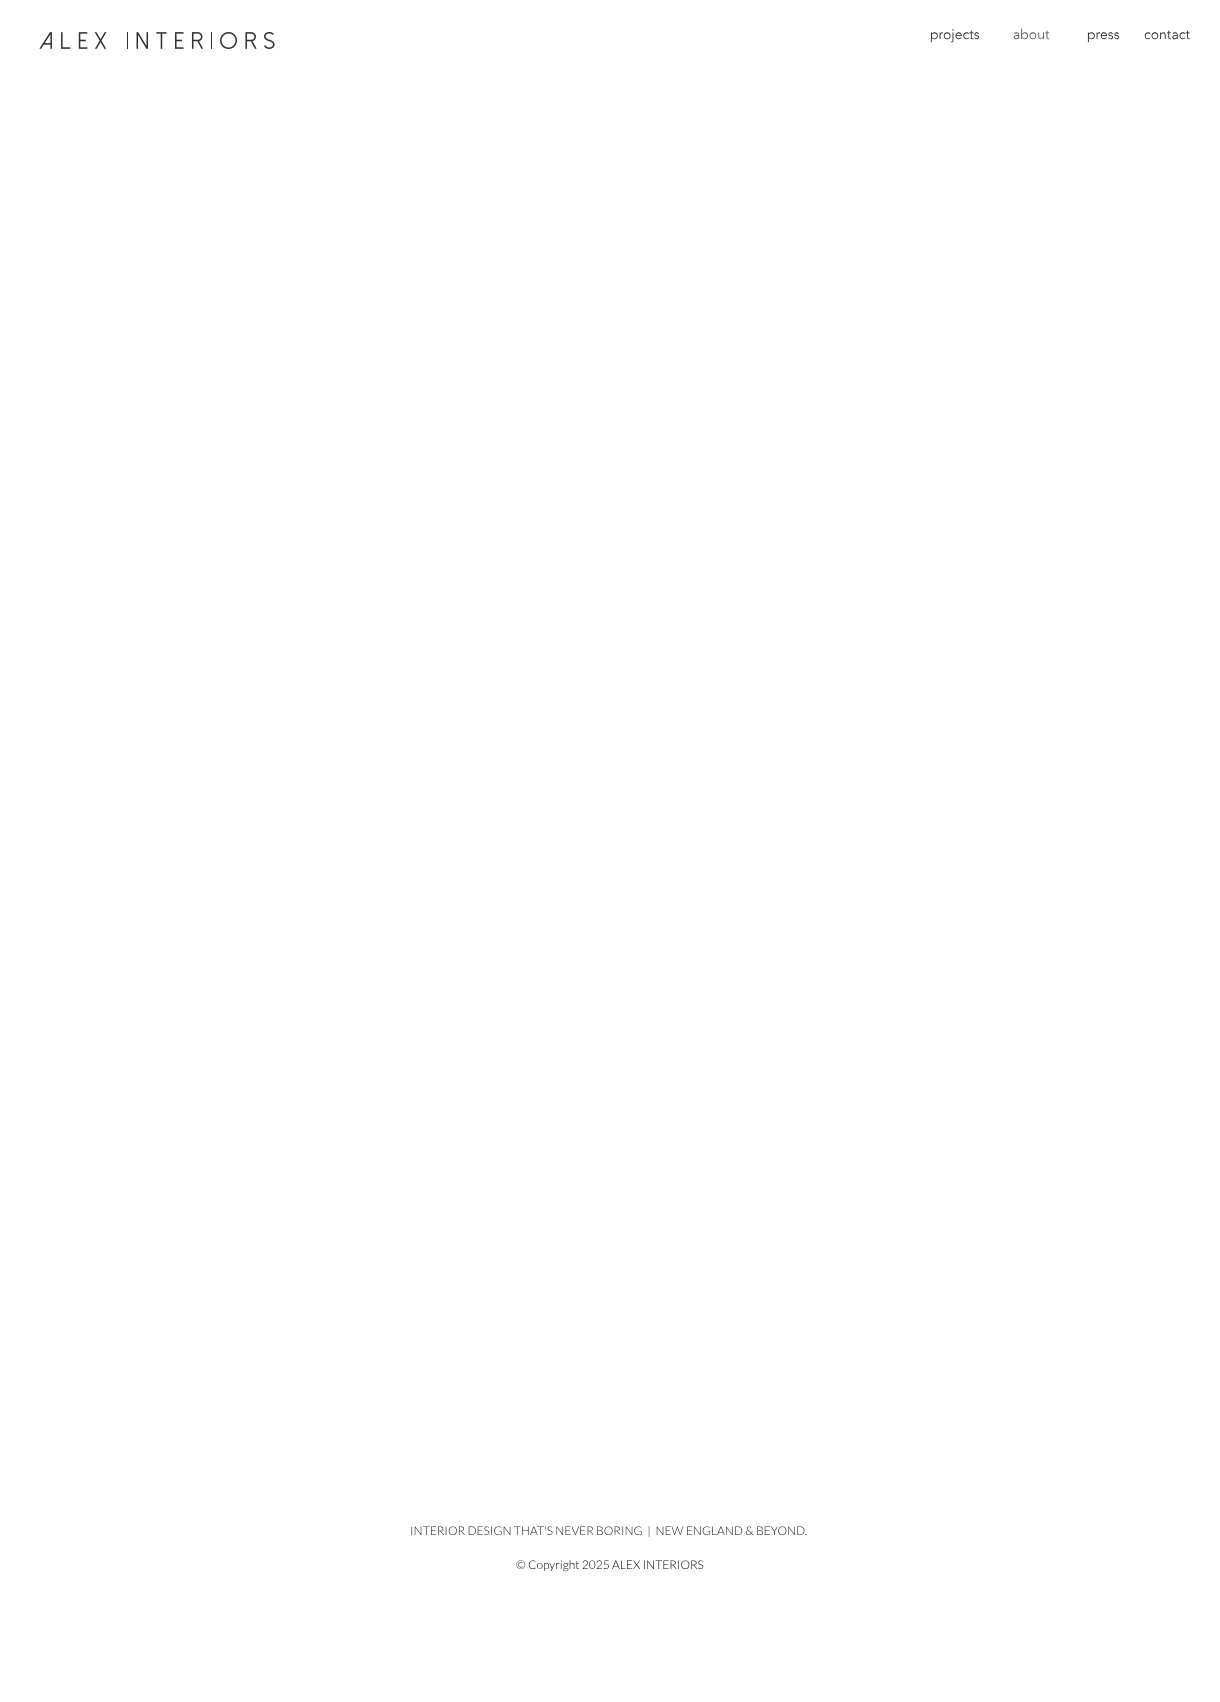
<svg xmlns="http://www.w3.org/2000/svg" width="1220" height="1702">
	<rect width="100%" height="100%" fill="#FFFFFF" />
	<image x="39" y="32" width="236" height="17" href="assets/img1.png" />
	<text x="930" y="39" font-family="'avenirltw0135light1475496'" font-size="14" font-weight="300" fill="#181818">projects</text>
	<text x="1013" y="39" font-family="'avenirltw0135light1475496'" font-size="14" font-weight="300" fill="#525252">about</text>
	<g font-family="'avenirltw0135light1475496'" font-size="14" font-weight="300" fill="#181818">
		<text x="1087" y="39">press</text>
		<text x="1144" y="39">contact</text>
	</g>
	<text x="410" y="1535" font-family="Lato" font-size="12" font-weight="300" fill="#181818" xml:space="preserve">INTERIOR DESIGN THAT'S NEVER BORING  |  NEW ENGLAND &amp; BEYOND.</text>
	<text x="516" y="1569" font-family="Lato" font-size="12" font-weight="300" fill="#000000">© Copyright 2025 ALEX INTERIORS</text>
</svg>
